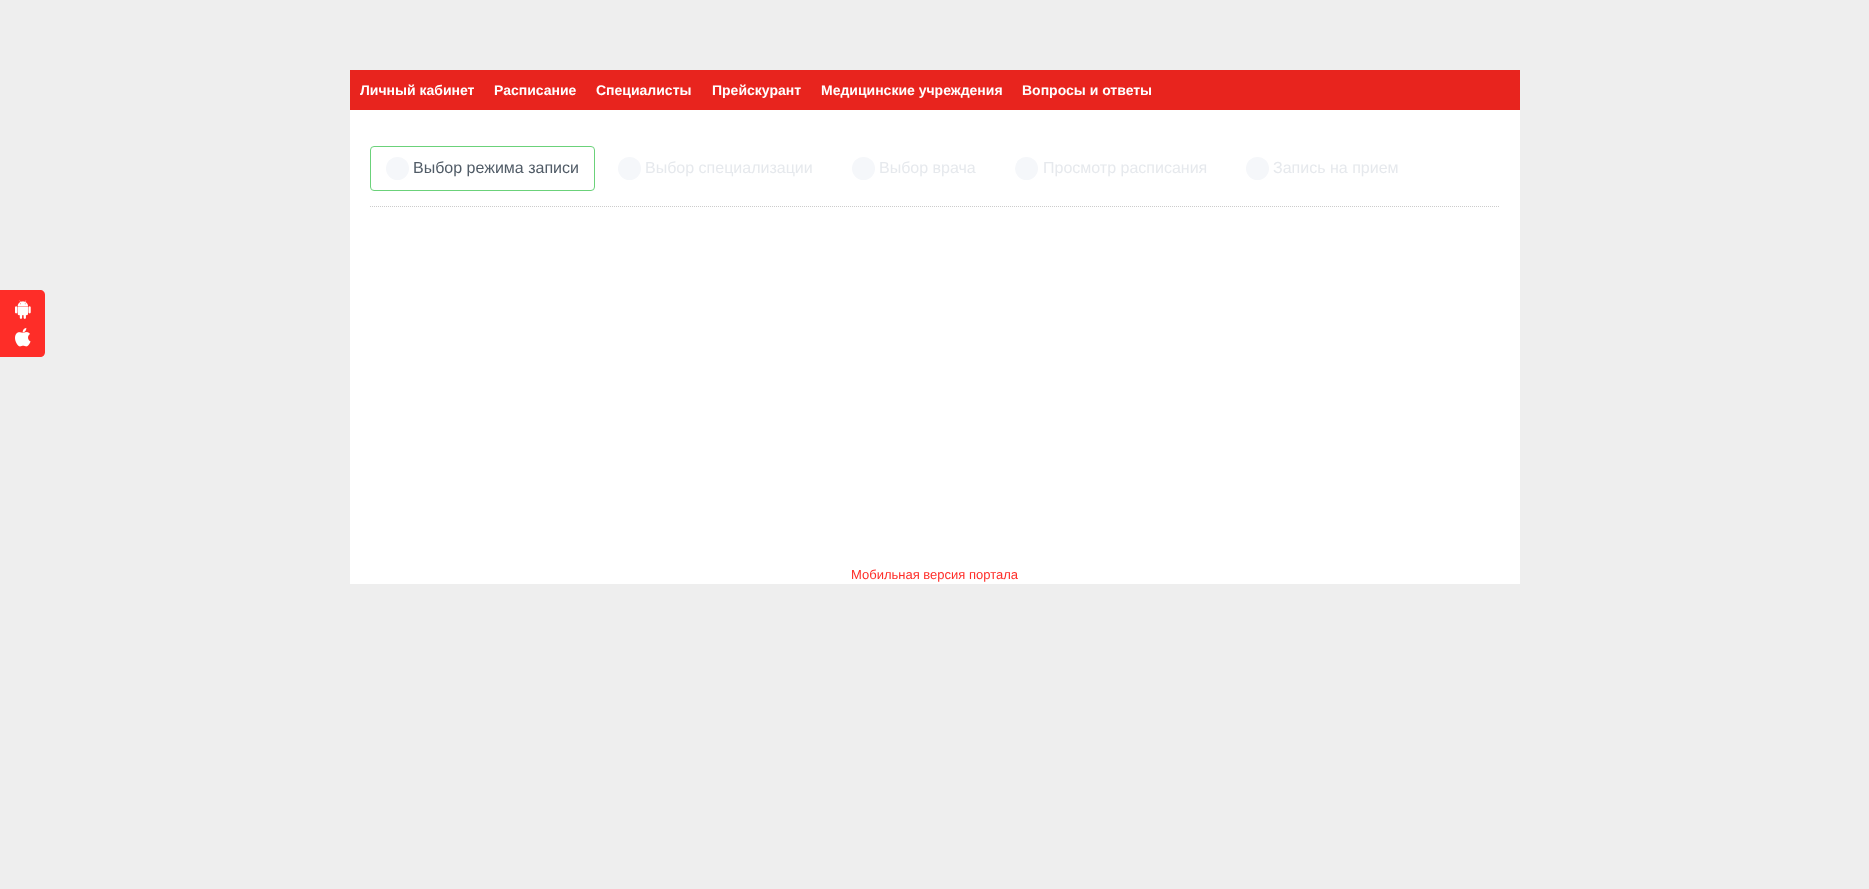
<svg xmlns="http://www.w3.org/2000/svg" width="1869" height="889">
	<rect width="100%" height="100%" fill="#EEEEEE" />
	<path d="M0 290H40C43 290 45 292 45 295V352C45 355 43 357 40 357H0Z" fill="#FE2D28" />
	<image x="15" y="300" width="16" height="19" href="assets/img1.png" />
	<image x="15" y="327" width="16" height="20" href="assets/img2.png" />
	<rect x="350" y="70" width="1170" height="40" fill="#E8241E" />
	<g font-family="Liberation Sans" font-size="14" font-weight="700" fill="#FFFFFF">
		<text x="360" y="95">Личный кабинет</text>
		<text x="494" y="95">Расписание</text>
		<text x="596" y="95">Специалисты</text>
		<text x="712" y="95">Прейскурант</text>
		<text x="821" y="95">Медицинские учреждения</text>
		<text x="1022" y="95">Вопросы и ответы</text>
	</g>
	<rect x="350" y="110" width="1170" height="474" fill="#FFFFFF" />
	<path d="M370 206.5H1500" fill="none" stroke="#CCCCCC" stroke-dasharray="1 1" />
	<rect x="370.5" y="146.5" width="224" height="44" rx="3.5" fill="none" stroke="#6BD27A" />
	<circle cx="397.5" cy="168.5" r="11.5" fill="#F5F7FA" />
	<text x="413" y="173" font-family="Liberation Sans" font-size="16" fill="#515C67">Выбор режима записи</text>
	<circle cx="629.5" cy="168.5" r="11.5" fill="#F5F7FA" />
	<text x="645" y="173" font-family="Liberation Sans" font-size="16" fill="#E6E9ED">Выбор специализации</text>
	<circle cx="863.5" cy="168.5" r="11.5" fill="#F5F7FA" />
	<text x="879" y="173" font-family="Liberation Sans" font-size="16" fill="#E6E9ED">Выбор врача</text>
	<circle cx="1026.5" cy="168.5" r="11.5" fill="#F5F7FA" />
	<text x="1043" y="173" font-family="Liberation Sans" font-size="16" fill="#E6E9ED">Просмотр расписания</text>
	<circle cx="1257.5" cy="168.5" r="11.5" fill="#F5F7FA" />
	<text x="1273" y="173" font-family="Liberation Sans" font-size="16" fill="#E6E9ED">Запись на прием</text>
	<text x="851" y="579" font-family="Liberation Sans" font-size="13" fill="#FE2D28">Мобильная версия портала</text>
</svg>
